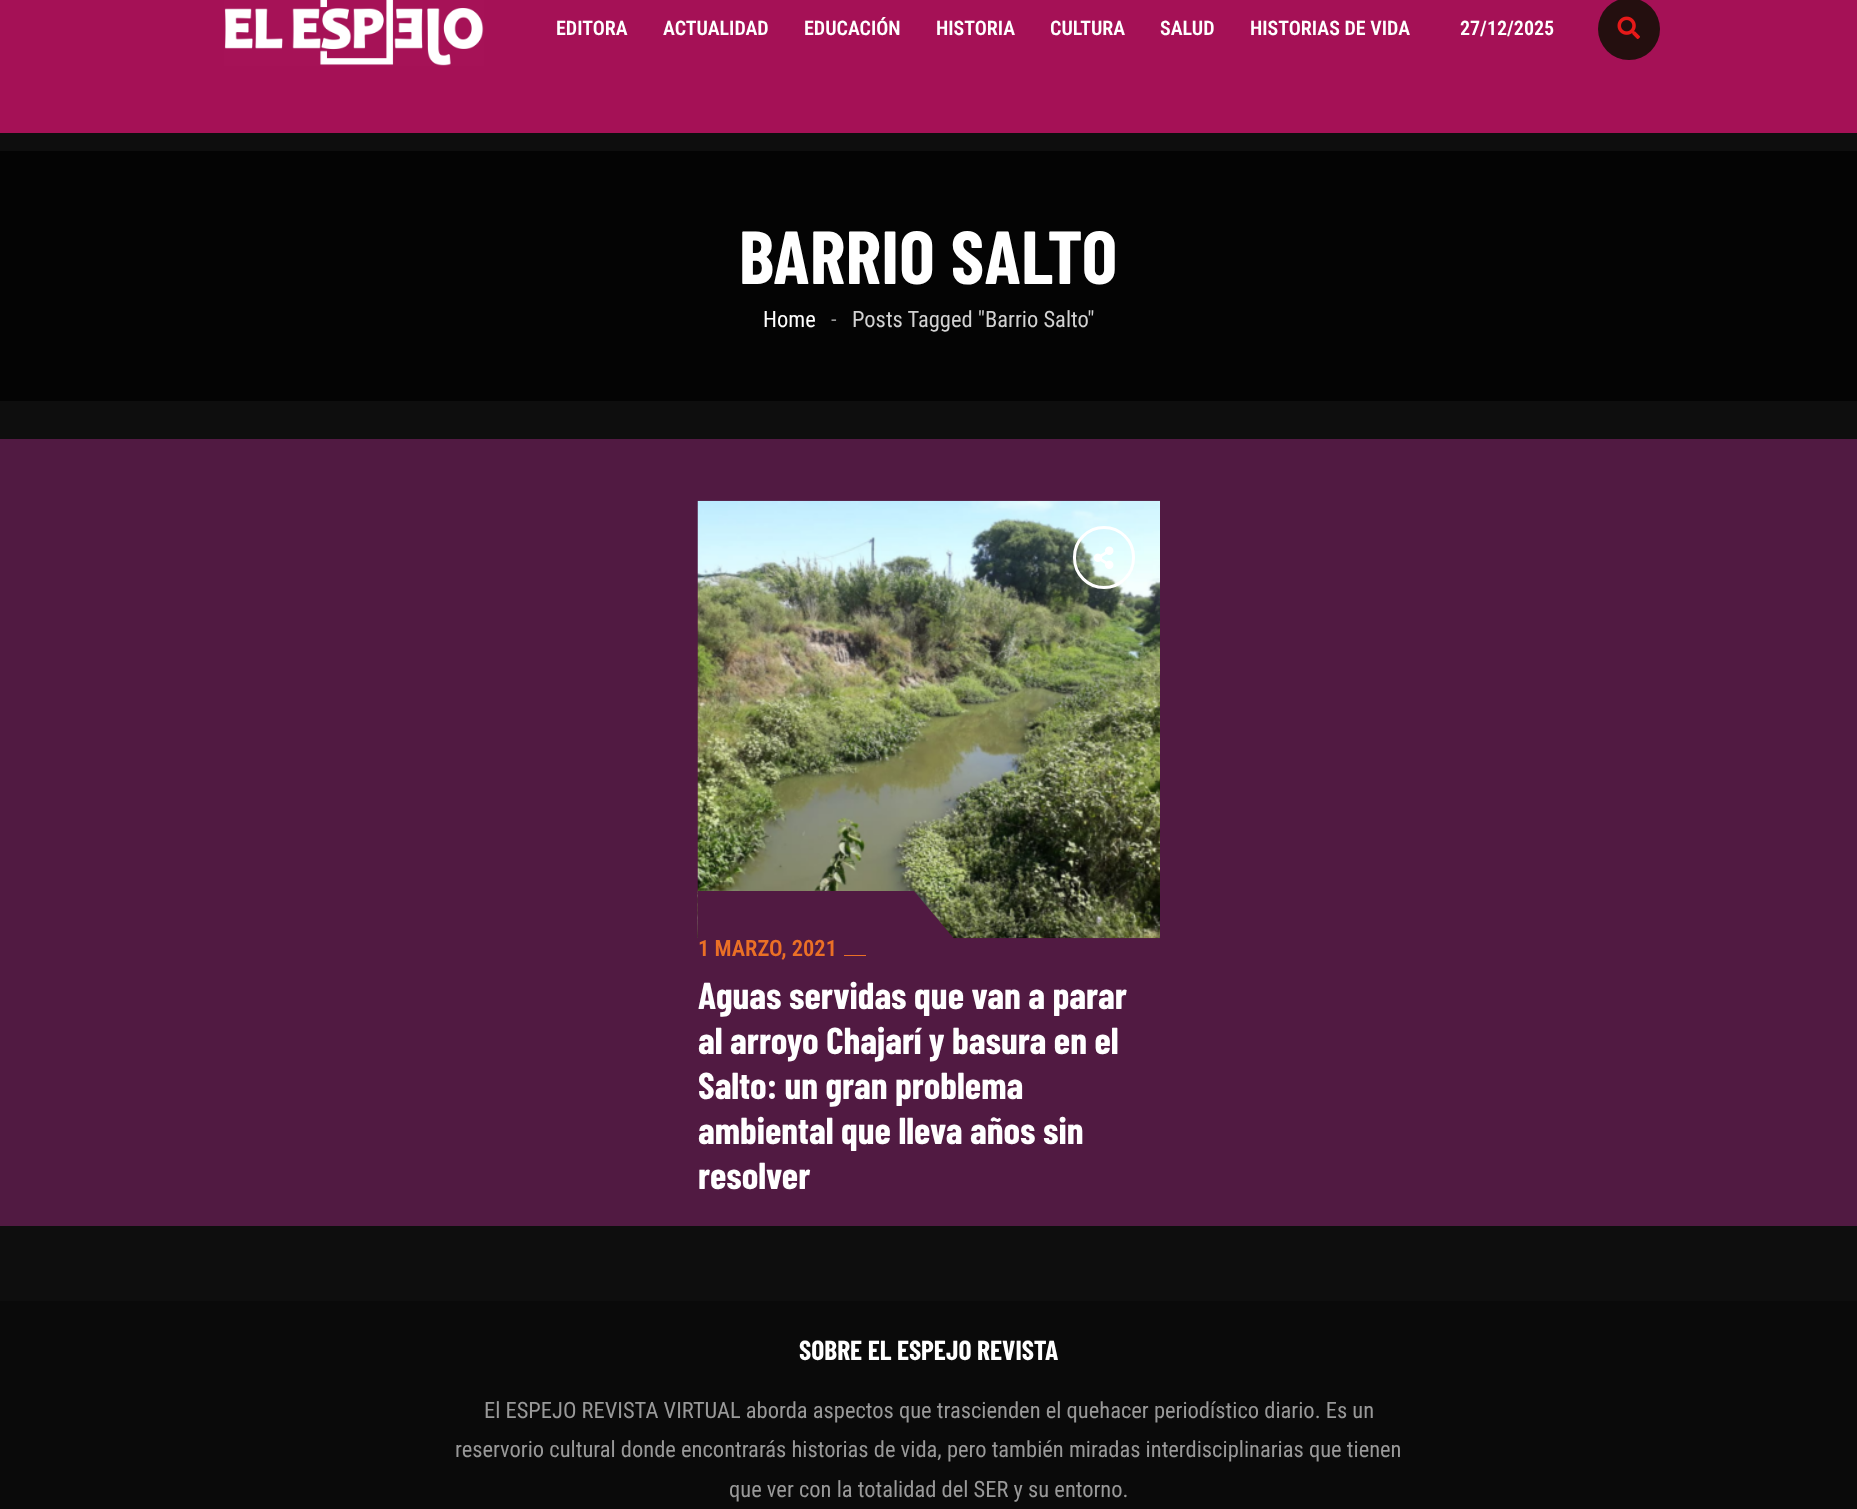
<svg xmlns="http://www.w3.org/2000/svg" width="1857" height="1509">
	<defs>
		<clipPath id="clip1"><rect x="698" y="501" width="462" height="438" /></clipPath>
	</defs>
	<rect width="100%" height="100%" fill="#0E0E0E" />
	<rect x="0" y="0" width="1857" height="133" fill="#A51156" />
	<image x="224" y="0" width="260" height="66" href="assets/img1.png" />
	<g font-family="Roboto Condensed" font-size="20" font-weight="600" fill="#FFFFFF">
		<text x="556" y="35">EDITORA</text>
		<text x="663" y="35">ACTUALIDAD</text>
		<text x="804" y="35">EDUCACIÓN</text>
		<text x="936" y="35">HISTORIA</text>
		<text x="1050" y="35">CULTURA</text>
		<text x="1160" y="35">SALUD</text>
		<text x="1250" y="35">HISTORIAS DE VIDA</text>
		<text x="1460" y="35">27/12/2025</text>
	</g>
	<circle cx="1629" cy="29" r="31" fill="#240F0F" />
	<image x="1617" y="16" width="23" height="23" href="assets/img2.png" />
	<rect x="0" y="151" width="1857" height="250" fill="#040404" />
	<text x="739" y="284" font-family="Barlow Condensed" font-size="75" font-weight="700" letter-spacing="0.5" fill="#FFFFFF">BARRIO SALTO</text>
	<text x="763" y="327" font-family="Roboto Condensed" font-size="22.5" fill="#FFFFFF">Home</text>
	<text x="831" y="327" font-family="Roboto Condensed" font-size="22.5" fill="#999999">-</text>
	<text x="852" y="327" font-family="Roboto Condensed" font-size="22.5" fill="#D2D2D2">Posts Tagged "Barrio Salto"</text>
	<rect x="0" y="439" width="1857" height="787" fill="#511A42" />
	<image x="697" y="500" width="463" height="439" href="assets/img3.png" />
	<rect x="1074.5" y="527.5" width="59" height="60" rx="29.5" fill="none" stroke="#FFFFFF" stroke-width="3" />
	<image x="1093" y="546" width="21" height="23" href="assets/img4.png" />
	<g clip-path="url(#clip1)">
		<path d="M652 891H914L956 941H693Z" fill="#511A42" />
	</g>
	<text x="698" y="956" font-family="Roboto Condensed" font-size="22.5" font-weight="600" fill="#EA7026">1 MARZO, 2021</text>
	<rect x="844" y="955" width="22" height="1" fill="#EA7026" />
	<g font-family="Barlow Condensed" font-size="37.5" font-weight="700" fill="#FFFFFF">
		<text x="698" y="1009">Aguas servidas que van a parar</text>
		<text x="698" y="1054">al arroyo Chajarí y basura en el</text>
		<text x="698" y="1099">Salto: un gran problema</text>
		<text x="698" y="1144">ambiental que lleva años sin</text>
		<text x="698" y="1189">resolver</text>
	</g>
	<rect x="0" y="1301" width="1857" height="208" fill="#0A0A0A" />
	<text x="799" y="1360" font-family="Barlow Condensed" font-size="27.5" font-weight="700" fill="#FFFFFF">SOBRE EL ESPEJO REVISTA</text>
	<g font-family="Roboto Condensed" font-size="22.5" fill="#999999">
		<text x="484" y="1418">El ESPEJO REVISTA VIRTUAL aborda aspectos que trascienden el quehacer periodístico diario. Es un</text>
		<text x="455" y="1457">reservorio cultural donde encontrarás historias de vida, pero también miradas interdisciplinarias que tienen</text>
		<text x="729" y="1497">que ver con la totalidad del SER y su entorno.</text>
	</g>
</svg>
